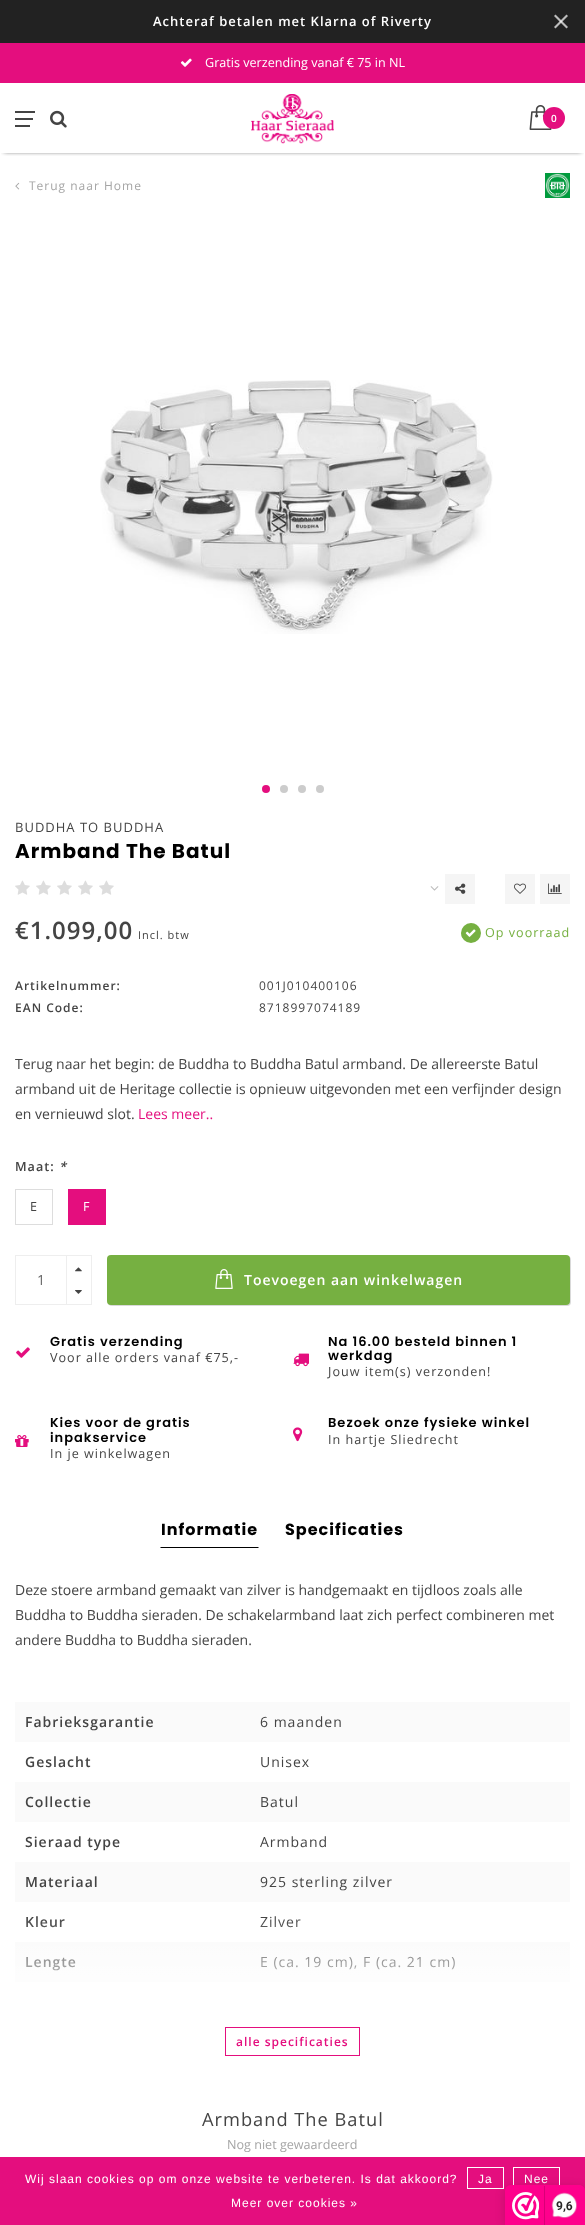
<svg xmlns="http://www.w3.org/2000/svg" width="585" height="2225">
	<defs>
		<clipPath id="clip1"><rect x="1" y="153" width="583" height="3" /></clipPath>
		<linearGradient id="g1" gradientUnits="userSpaceOnUse" x1="293" y1="1916" x2="293" y2="2016"><stop offset="0" stop-color="#FFFFFF" stop-opacity="0" /><stop offset="1" stop-color="#FFFFFF" /></linearGradient>
	</defs>
	<rect width="100%" height="100%" fill="#FFFFFF" />
	<rect x="0" y="0" width="585" height="43" fill="#222222" />
	<text x="153" y="26" font-family="Open Sans" font-size="13" font-weight="600" letter-spacing="1" fill="#FFFFFF">Achteraf betalen met Klarna of Riverty</text>
	<path d="M555.5 14.5L568 27L566.5 28.5L554 16Z" fill="#BDBDBD" />
	<path d="M554 27L566.5 14.5L568 16L555.5 28.5Z" fill="#FFFFFF" fill-opacity="0.7" />
	<rect x="0" y="43" width="585" height="40" fill="#E40E7E" />
	<image x="180" y="58" width="12" height="9" href="assets/img1.png" />
	<text x="205" y="67" font-family="Open Sans" font-size="12.6" fill="#FFFFFF">Gratis verzending vanaf € 75 in NL</text>
	<g clip-path="url(#clip1)">
		<rect x="4" y="89" width="577" height="62" fill="#000000" filter="blur(2.5px)" />
	</g>
	<rect x="15" y="111" width="20" height="2" fill="#444444" />
	<rect x="15" y="118" width="18" height="2" fill="#444444" />
	<rect x="15" y="125" width="15" height="2" fill="#444444" />
	<image x="50" y="110" width="17" height="18" href="assets/img2.png" />
	<image x="251" y="94" width="83" height="50" href="assets/img3.png" />
	<image x="529" y="105" width="23" height="25" href="assets/img4.png" />
	<circle cx="554" cy="118" r="11" fill="#E40E7E" />
	<text x="551" y="122" font-family="Open Sans" font-size="10" font-weight="600" letter-spacing="1" fill="#FFFFFF">0</text>
	<image x="15" y="182" width="5" height="8" href="assets/img5.png" />
	<text x="29" y="190" font-family="Open Sans" font-size="12" letter-spacing="1" fill="#A5A5A5">Terug naar Home</text>
	<image x="545" y="173" width="25" height="25" href="assets/img6.png" />
	<image x="100" y="380" width="393" height="254" href="assets/img7.png" />
	<circle cx="266" cy="789" r="4" fill="#E40E7E" />
	<circle cx="284" cy="789" r="4" fill="#CCCCCC" />
	<circle cx="302" cy="789" r="4" fill="#CCCCCC" />
	<circle cx="320" cy="789" r="4" fill="#CCCCCC" />
	<text x="15" y="832" font-family="Open Sans" font-size="13" letter-spacing="1" fill="#444444">BUDDHA TO BUDDHA</text>
	<text x="15" y="858" font-family="Poppins" font-size="20" font-weight="700" letter-spacing="1" fill="#000000">Armband The Batul</text>
	<image x="15" y="880" width="15" height="15" href="assets/img8.png" />
	<image x="36" y="880" width="15" height="15" href="assets/img8.png" />
	<image x="57" y="880" width="15" height="15" href="assets/img8.png" />
	<image x="78" y="880" width="15" height="15" href="assets/img8.png" />
	<image x="99" y="880" width="15" height="15" href="assets/img8.png" />
	<image x="430" y="886" width="9" height="5" href="assets/img9.png" />
	<rect x="445" y="874" width="30" height="30" fill="#F5F5F5" />
	<image x="455" y="883" width="11" height="11" href="assets/img10.png" />
	<rect x="505" y="874" width="30" height="30" fill="#F5F5F5" />
	<image x="514" y="883" width="12" height="11" href="assets/img11.png" />
	<rect x="540" y="874" width="30" height="30" fill="#F5F5F5" />
	<image x="548" y="883" width="14" height="11" href="assets/img12.png" />
	<text x="15" y="939" font-family="Open Sans" font-size="24" font-weight="600" letter-spacing="1" fill="#444444">€1.099,00</text>
	<text x="138" y="939" font-family="Open Sans" font-size="11" letter-spacing="1" fill="#444444">Incl. btw</text>
	<circle cx="471" cy="933" r="10" fill="#76B041" />
	<image x="465" y="929" width="11" height="8" href="assets/img13.png" />
	<text x="485" y="937" font-family="Open Sans" font-size="12.6" letter-spacing="1" fill="#76B041">Op voorraad</text>
	<text x="15" y="990" font-family="Open Sans" font-size="12" font-weight="600" letter-spacing="1" fill="#444444">Artikelnummer:</text>
	<text x="259" y="990" font-family="Open Sans" font-size="12" letter-spacing="1" fill="#444444">001J010400106</text>
	<text x="15" y="1012" font-family="Open Sans" font-size="12" font-weight="600" letter-spacing="1" fill="#444444">EAN Code:</text>
	<text x="259" y="1012" font-family="Open Sans" font-size="12" letter-spacing="1" fill="#444444">8718997074189</text>
	<g font-family="Open Sans" font-size="14" fill="#444444">
		<text x="15" y="1069">Terug naar het begin: de Buddha to Buddha Batul armband. De allereerste Batul</text>
		<text x="15" y="1094">armband uit de Heritage collectie is opnieuw uitgevonden met een verfijnder design</text>
		<text x="15" y="1119">en vernieuwd slot.</text>
	</g>
	<text x="138" y="1119" font-family="Open Sans" font-size="14" fill="#E40E7E">Lees meer..</text>
	<text x="15" y="1171" font-family="Open Sans" font-size="12.6" font-weight="600" letter-spacing="1" fill="#444444">Maat:</text>
	<text x="59" y="1171" font-family="Open Sans" font-size="12.6" font-weight="600" font-style="italic" letter-spacing="1" fill="#444444">*</text>
	<rect x="15.5" y="1189.5" width="37" height="35" fill="none" stroke="#DDDDDD" />
	<text x="30" y="1211" font-family="Open Sans" font-size="12.6" letter-spacing="1" fill="#444444">E</text>
	<rect x="68" y="1189" width="38" height="36" fill="#E40E7E" />
	<text x="83" y="1211" font-family="Open Sans" font-size="12.6" letter-spacing="1" fill="#FFFFFF">F</text>
	<rect x="15.5" y="1255.5" width="76" height="49" fill="none" stroke="#EEEEEE" />
	<text x="37" y="1285" font-family="Open Sans" font-size="14" fill="#666666">1</text>
	<rect x="66" y="1256" width="1" height="48" fill="#EEEEEE" />
	<image x="75" y="1267" width="7" height="5" href="assets/img14.png" />
	<image x="75" y="1290" width="7" height="4" href="assets/img15.png" />
	<rect x="108" y="1256" width="463" height="50" rx="4" fill="#000000" fill-opacity="0.15" filter="blur(0.5px)" />
	<rect x="107" y="1255" width="463" height="50" rx="4" fill="#76B041" />
	<image x="215" y="1269" width="18" height="20" href="assets/img16.png" />
	<text x="244" y="1285" font-family="Open Sans" font-size="14" font-weight="600" letter-spacing="1" fill="#FFFFFF">Toevoegen aan winkelwagen</text>
	<text x="50" y="1346" font-family="Poppins" font-size="13" font-weight="600" letter-spacing="1" fill="#000000">Gratis verzending</text>
	<image x="16" y="1347" width="14" height="11" href="assets/img17.png" />
	<text x="50" y="1362" font-family="Open Sans" font-size="12.6" letter-spacing="1" fill="#444444">Voor alle orders vanaf €75,-</text>
	<image x="293" y="1353" width="16" height="14" href="assets/img18.png" />
	<g font-family="Poppins" font-size="13" font-weight="600" letter-spacing="1" fill="#000000">
		<text x="328" y="1346">Na 16.00 besteld binnen 1</text>
		<text x="328" y="1360">werkdag</text>
	</g>
	<text x="328" y="1376" font-family="Open Sans" font-size="12.6" letter-spacing="1" fill="#444444">Jouw item(s) verzonden!</text>
	<image x="15" y="1435" width="14" height="12" href="assets/img19.png" />
	<g font-family="Poppins" font-size="13" font-weight="600" letter-spacing="1" fill="#000000">
		<text x="50" y="1427">Kies voor de gratis</text>
		<text x="50" y="1442">inpakservice</text>
	</g>
	<text x="50" y="1458" font-family="Open Sans" font-size="12.6" letter-spacing="1" fill="#444444">In je winkelwagen</text>
	<text x="328" y="1427" font-family="Poppins" font-size="13" font-weight="600" letter-spacing="1" fill="#000000">Bezoek onze fysieke winkel</text>
	<image x="293" y="1427" width="10" height="15" href="assets/img20.png" />
	<text x="328" y="1444" font-family="Open Sans" font-size="12.6" letter-spacing="1" fill="#444444">In hartje Sliedrecht</text>
	<path d="M259 1548H160L161 1547H258Z" fill="#000000" />
	<g font-family="Poppins" font-size="16" font-weight="700" letter-spacing="1" fill="#000000">
		<text x="161" y="1535">Informatie</text>
		<text x="285" y="1535">Specificaties</text>
	</g>
	<g font-family="Open Sans" font-size="14" fill="#444444">
		<text x="15" y="1595">Deze stoere armband gemaakt van zilver is handgemaakt en tijdloos zoals alle</text>
		<text x="15" y="1620">Buddha to Buddha sieraden. De schakelarmband laat zich perfect combineren met</text>
		<text x="15" y="1645">andere Buddha to Buddha sieraden.</text>
	</g>
	<rect x="15" y="1702" width="555" height="40" fill="#FAFAFA" />
	<text x="25" y="1727" font-family="Open Sans" font-size="14" font-weight="600" letter-spacing="1" fill="#444444">Fabrieksgarantie</text>
	<text x="260" y="1727" font-family="Open Sans" font-size="14" letter-spacing="1" fill="#444444">6 maanden</text>
	<text x="25" y="1767" font-family="Open Sans" font-size="14" font-weight="600" letter-spacing="1" fill="#444444">Geslacht</text>
	<text x="260" y="1767" font-family="Open Sans" font-size="14" letter-spacing="1" fill="#444444">Unisex</text>
	<rect x="15" y="1782" width="555" height="40" fill="#FAFAFA" />
	<text x="25" y="1807" font-family="Open Sans" font-size="14" font-weight="600" letter-spacing="1" fill="#444444">Collectie</text>
	<text x="260" y="1807" font-family="Open Sans" font-size="14" letter-spacing="1" fill="#444444">Batul</text>
	<text x="25" y="1847" font-family="Open Sans" font-size="14" font-weight="600" letter-spacing="1" fill="#444444">Sieraad type</text>
	<text x="260" y="1847" font-family="Open Sans" font-size="14" letter-spacing="1" fill="#444444">Armband</text>
	<rect x="15" y="1862" width="555" height="40" fill="#FAFAFA" />
	<text x="25" y="1887" font-family="Open Sans" font-size="14" font-weight="600" letter-spacing="1" fill="#444444">Materiaal</text>
	<text x="260" y="1887" font-family="Open Sans" font-size="14" letter-spacing="1" fill="#444444">925 sterling zilver</text>
	<text x="25" y="1927" font-family="Open Sans" font-size="14" font-weight="600" letter-spacing="1" fill="#444444">Kleur</text>
	<text x="260" y="1927" font-family="Open Sans" font-size="14" letter-spacing="1" fill="#444444">Zilver</text>
	<rect x="15" y="1942" width="555" height="40" fill="#FAFAFA" />
	<text x="25" y="1967" font-family="Open Sans" font-size="14" font-weight="600" letter-spacing="1" fill="#444444">Lengte</text>
	<text x="260" y="1967" font-family="Open Sans" font-size="14" letter-spacing="1" fill="#444444">E (ca. 19 cm), F (ca. 21 cm)</text>
	<rect x="15" y="1918" width="555" height="64" fill="url(#g1)" />
	<rect x="225.5" y="2027.5" width="134" height="28" fill="none" stroke="#E40E7E" />
	<text x="236" y="2046" font-family="Open Sans" font-size="12" font-weight="600" letter-spacing="1" fill="#E40E7E">alle specificaties</text>
	<text x="202" y="2126" font-family="Open Sans" font-size="18.25" letter-spacing="1" fill="#444444">Armband The Batul</text>
	<text x="227" y="2149" font-family="Open Sans" font-size="12.6" fill="#A5A5A5">Nog niet gewaardeerd</text>
	<rect x="0" y="2157" width="585" height="68" fill="#E40E7E" />
	<text x="25" y="2183" font-family="Liberation Sans" font-size="12" letter-spacing="1" fill="#FFFFFF">Wij slaan cookies op om onze website te verbeteren. Is dat akkoord?</text>
	<rect x="467.5" y="2167.5" width="36" height="21" fill="none" stroke="#FFFFFF" />
	<text x="478" y="2183" font-family="Liberation Sans" font-size="12" letter-spacing="1" fill="#FFFFFF">Ja</text>
	<rect x="513.5" y="2167.5" width="46" height="21" fill="none" stroke="#FFFFFF" />
	<g font-family="Liberation Sans" font-size="12" letter-spacing="1" fill="#FFFFFF">
		<text x="524" y="2183">Nee</text>
		<text x="231" y="2207">Meer over cookies »</text>
	</g>
	<rect x="505" y="2187" width="80" height="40" rx="6" fill="#000000" fill-opacity="0.15" filter="blur(5px)" />
	<path d="M511 2185H579C582.5 2185 585 2187.5 585 2191V2225H505V2191C505 2187.5 507.5 2185 511 2185Z" fill="#FE008C" />
	<image x="512" y="2192" width="27" height="28" href="assets/img21.png" />
	<rect x="544" y="2186" width="1" height="39" fill="#D80077" />
	<image x="551" y="2192" width="26" height="26" href="assets/img22.png" />
	<text x="556" y="2210" font-family="Roboto" font-size="12" font-weight="700" fill="#272626">9,6</text>
</svg>
